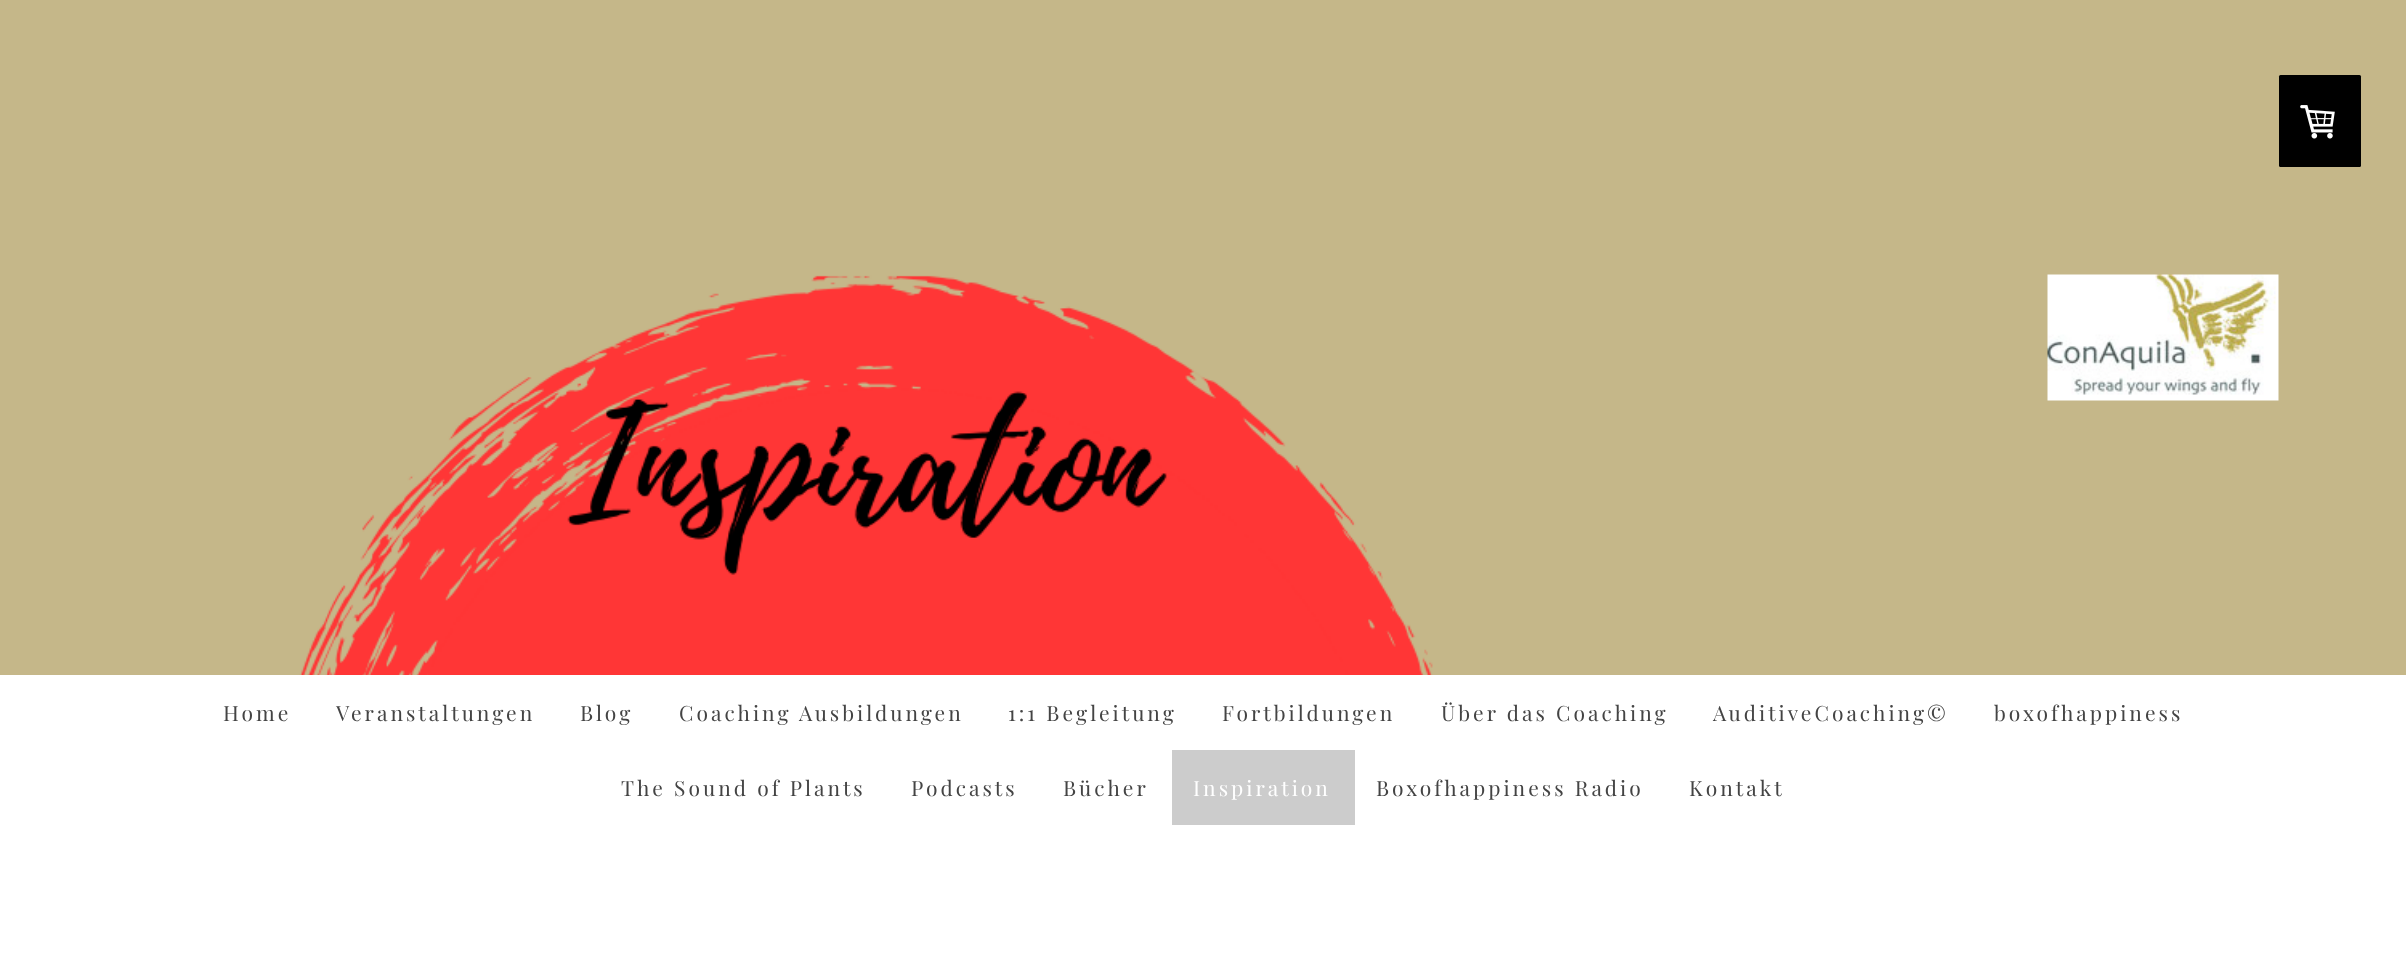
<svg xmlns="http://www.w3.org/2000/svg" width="2406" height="974">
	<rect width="100%" height="100%" fill="#FFFFFF" />
	<image x="0" y="0" width="2406" height="675" href="assets/img1.png" />
	<image x="2047" y="274" width="232" height="127" href="assets/img2.png" />
	<rect x="2279" y="75" width="82" height="92" rx="1.5" fill="#000000" />
	<image x="2300" y="105" width="35" height="34" href="assets/img3.png" />
	<g font-family="Playfair Display" font-size="21" letter-spacing="3" fill="#444444">
		<text x="223" y="721">Home</text>
		<text x="336" y="721">Veranstaltungen</text>
		<text x="580" y="721">Blog</text>
		<text x="679" y="721">Coaching Ausbildungen</text>
		<text x="1008" y="721">1:1 Begleitung</text>
		<text x="1222" y="721">Fortbildungen</text>
		<text x="1441" y="721">Über das Coaching</text>
		<text x="1713" y="721">AuditiveCoaching©</text>
		<text x="1994" y="721">boxofhappiness</text>
		<text x="621" y="796">The Sound of Plants</text>
		<text x="911" y="796">Podcasts</text>
		<text x="1063" y="796">Bücher</text>
	</g>
	<rect x="1172" y="750" width="183" height="75" fill="#CCCCCC" />
	<text x="1193" y="796" font-family="Playfair Display" font-size="21" letter-spacing="3" fill="#FFFFFF">Inspiration</text>
	<g font-family="Playfair Display" font-size="21" letter-spacing="3" fill="#444444">
		<text x="1376" y="796">Boxofhappiness Radio</text>
		<text x="1689" y="796">Kontakt</text>
	</g>
</svg>
